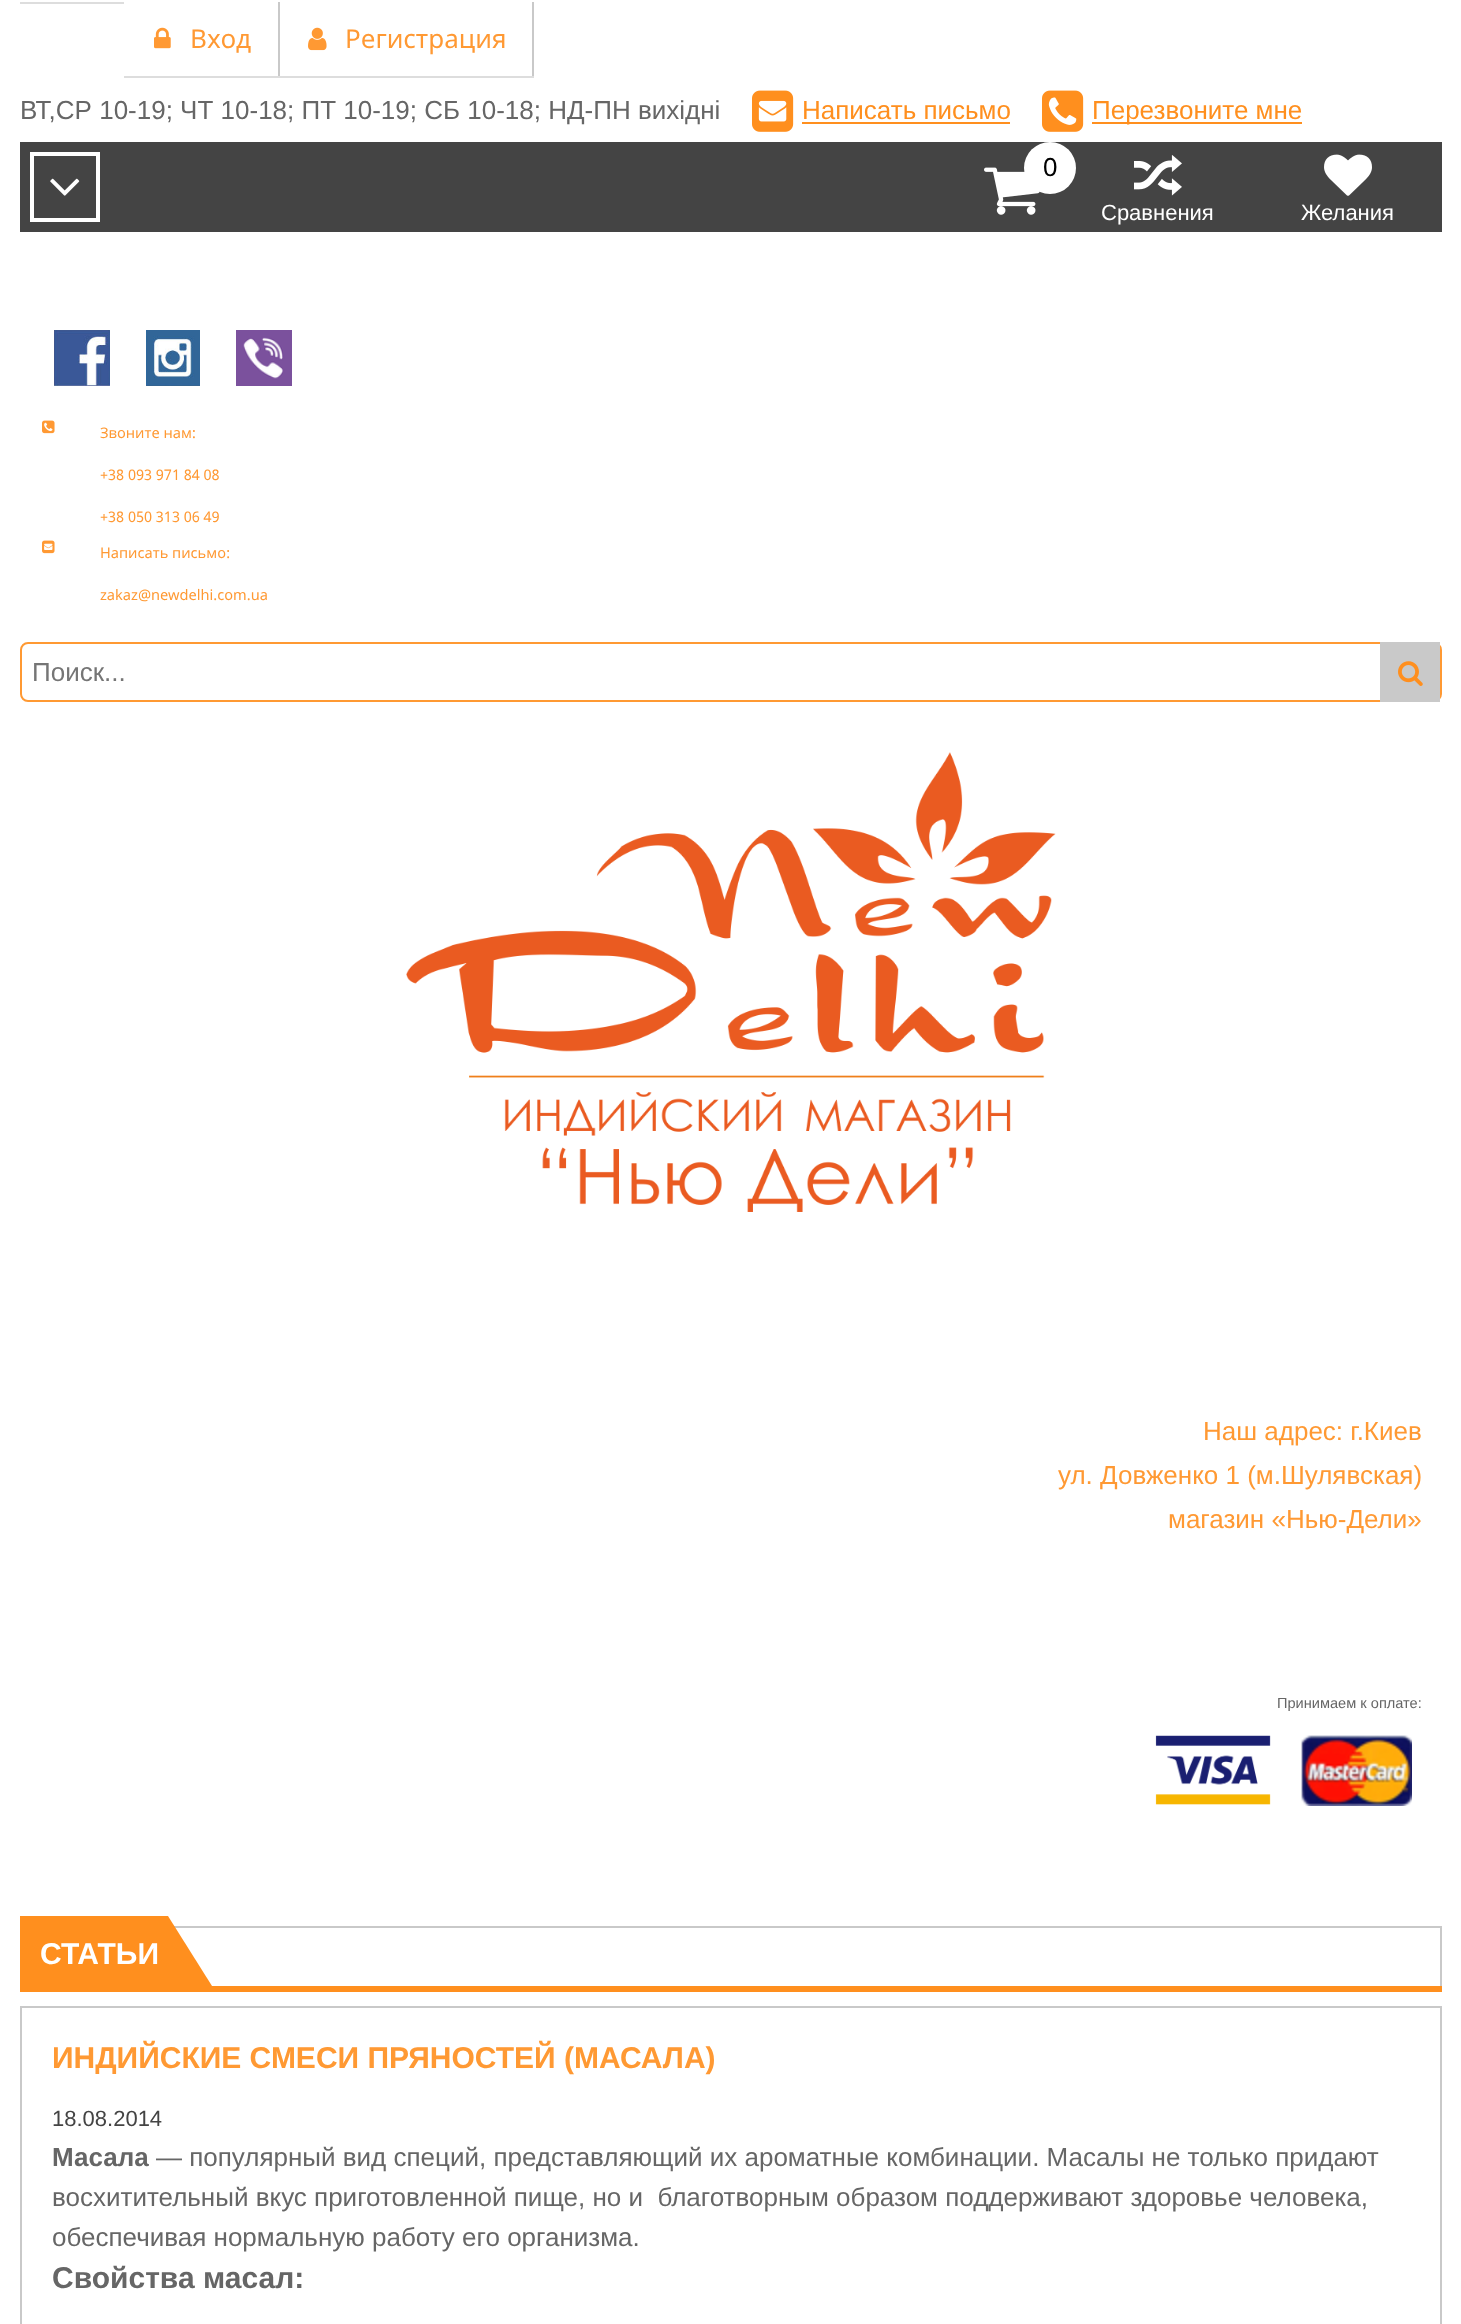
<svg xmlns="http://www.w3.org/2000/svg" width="1461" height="2324">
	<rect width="100%" height="100%" fill="#FFFFFF" />
	<rect x="20" y="2" width="104" height="2" fill="#DDDDDD" />
	<rect x="124" y="76" width="410" height="2" fill="#DDDDDD" />
	<rect x="278" y="2" width="2" height="74" fill="#C9C9C9" />
	<image x="154" y="27" width="17" height="22" href="assets/img1.png" />
	<text x="190" y="48" font-family="Noto Sans" font-size="26" fill="#FF9933">Вход</text>
	<rect x="532" y="2" width="2" height="74" fill="#C9C9C9" />
	<image x="308" y="27" width="19" height="24" href="assets/img2.png" />
	<text x="345" y="48" font-family="Noto Sans" font-size="26" fill="#FF9933">Регистрация</text>
	<text x="20" y="119" font-family="Liberation Sans" font-size="26" fill="#666666">ВТ,СР 10-19; ЧТ 10-18; ПТ 10-19; СБ 10-18; НД-ПН вихідні</text>
	<image x="752" y="90" width="42" height="42" href="assets/img3.png" />
	<text x="802" y="119" font-family="Liberation Sans" font-size="26" fill="#FF8F1E">Написать письмо</text>
	<rect x="802" y="122" width="208" height="2" fill="#FF8F1E" />
	<image x="1042" y="90" width="42" height="42" href="assets/img4.png" />
	<rect x="1092" y="122" width="210" height="2" fill="#FF8F1E" />
	<text x="1092" y="119" font-family="Liberation Sans" font-size="26" fill="#FF8F1E">Перезвоните мне</text>
	<rect x="20" y="142" width="1422" height="90" fill="#444444" />
	<rect x="32" y="154" width="66" height="66" fill="none" stroke="#FFFFFF" stroke-width="4" />
	<image x="50" y="178" width="30" height="18" href="assets/img5.png" />
	<image x="984" y="167" width="56" height="48" href="assets/img6.png" />
	<circle cx="1050" cy="168" r="26" fill="#FFFFFF" />
	<text x="1043" y="176" font-family="Liberation Sans" font-size="26" fill="#000000">0</text>
	<image x="1134" y="155" width="48" height="41" href="assets/img7.png" />
	<text x="1101" y="220" font-family="Liberation Sans" font-size="22" fill="#FFFFFF">Сравнения</text>
	<image x="1324" y="154" width="48" height="42" href="assets/img8.png" />
	<text x="1301" y="220" font-family="Liberation Sans" font-size="22" fill="#FFFFFF">Желания</text>
	<image x="54" y="330" width="56" height="56" href="assets/img9.png" />
	<image x="146" y="330" width="54" height="56" href="assets/img10.png" />
	<image x="236" y="330" width="56" height="56" href="assets/img11.png" />
	<image x="42" y="420" width="13" height="14" href="assets/img12.png" />
	<g font-family="Noto Sans" font-size="14.6" fill="#FF9933">
		<text x="100" y="438">Звоните нам:</text>
		<text x="100" y="480">+38 093 971 84 08</text>
		<text x="100" y="522">+38 050 313 06 49</text>
	</g>
	<image x="42" y="540" width="13" height="14" href="assets/img13.png" />
	<g font-family="Noto Sans" font-size="14.6" fill="#FF9933">
		<text x="100" y="558">Написать письмо:</text>
		<text x="100" y="600">zakaz@newdelhi.com.ua</text>
	</g>
	<rect x="21" y="643" width="1420" height="58" rx="7" fill="none" stroke="#FF9933" stroke-width="2" />
	<text x="32" y="681" font-family="Liberation Sans" font-size="26" fill="#757575">Поиск...</text>
	<rect x="1380" y="642" width="60" height="60" fill="#C9C9C9" />
	<image x="1398" y="661" width="25" height="25" href="assets/img14.png" />
	<image x="406" y="752" width="650" height="460" href="assets/img15.png" />
	<g font-family="Liberation Sans" font-size="26" fill="#FF9933">
		<text x="1203" y="1440">Наш адрес: г.Киев</text>
		<text x="1058" y="1484">ул. Довженко 1 (м.Шулявская)</text>
		<text x="1168" y="1528">магазин «Нью-Дели»</text>
	</g>
	<text x="1277" y="1708" font-family="Liberation Sans" font-size="14.6" fill="#666666">Принимаем к оплате:</text>
	<image x="1155" y="1735" width="116" height="70" href="assets/img16.png" />
	<image x="1301" y="1735" width="111" height="71" href="assets/img17.png" />
	<rect x="174" y="1926" width="1268" height="2" fill="#C9C9C9" />
	<rect x="1440" y="1926" width="2" height="60" fill="#C9C9C9" />
	<rect x="20" y="1916" width="148" height="70" fill="#FF8F1E" />
	<text x="40" y="1964" font-family="Liberation Sans" font-size="30" font-weight="700" fill="#FFFFFF">СТАТЬИ</text>
	<path d="M168 1986V1916L212 1986Z" fill="#FF8F1E" />
	<rect x="20" y="1986" width="1422" height="6" fill="#FF8F1E" />
	<rect x="21" y="2007" width="1420" height="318" fill="none" stroke="#C9C9C9" stroke-width="2" />
	<text x="52" y="2068" font-family="Liberation Sans" font-size="30" font-weight="700" fill="#FF9933">ИНДИЙСКИЕ СМЕСИ ПРЯНОСТЕЙ (МАСАЛА)</text>
	<text x="52" y="2126" font-family="Liberation Sans" font-size="22" fill="#444444">18.08.2014</text>
	<text x="52" y="2166" font-family="Liberation Sans" font-size="26" font-weight="700" fill="#666666">Масала</text>
	<g font-family="Liberation Sans" font-size="26" fill="#666666">
		<text x="156" y="2166">— популярный вид специй, представляющий их ароматные комбинации. Масалы не только придают</text>
		<text x="52" y="2206" xml:space="preserve">восхитительный вкус приготовленной пище, но и  благотворным образом поддерживают здоровье человека,</text>
		<text x="52" y="2246">обеспечивая нормальную работу его организма.</text>
	</g>
	<text x="52" y="2288" font-family="Liberation Sans" font-size="30" font-weight="700" fill="#666666">Свойства масал:</text>
</svg>
